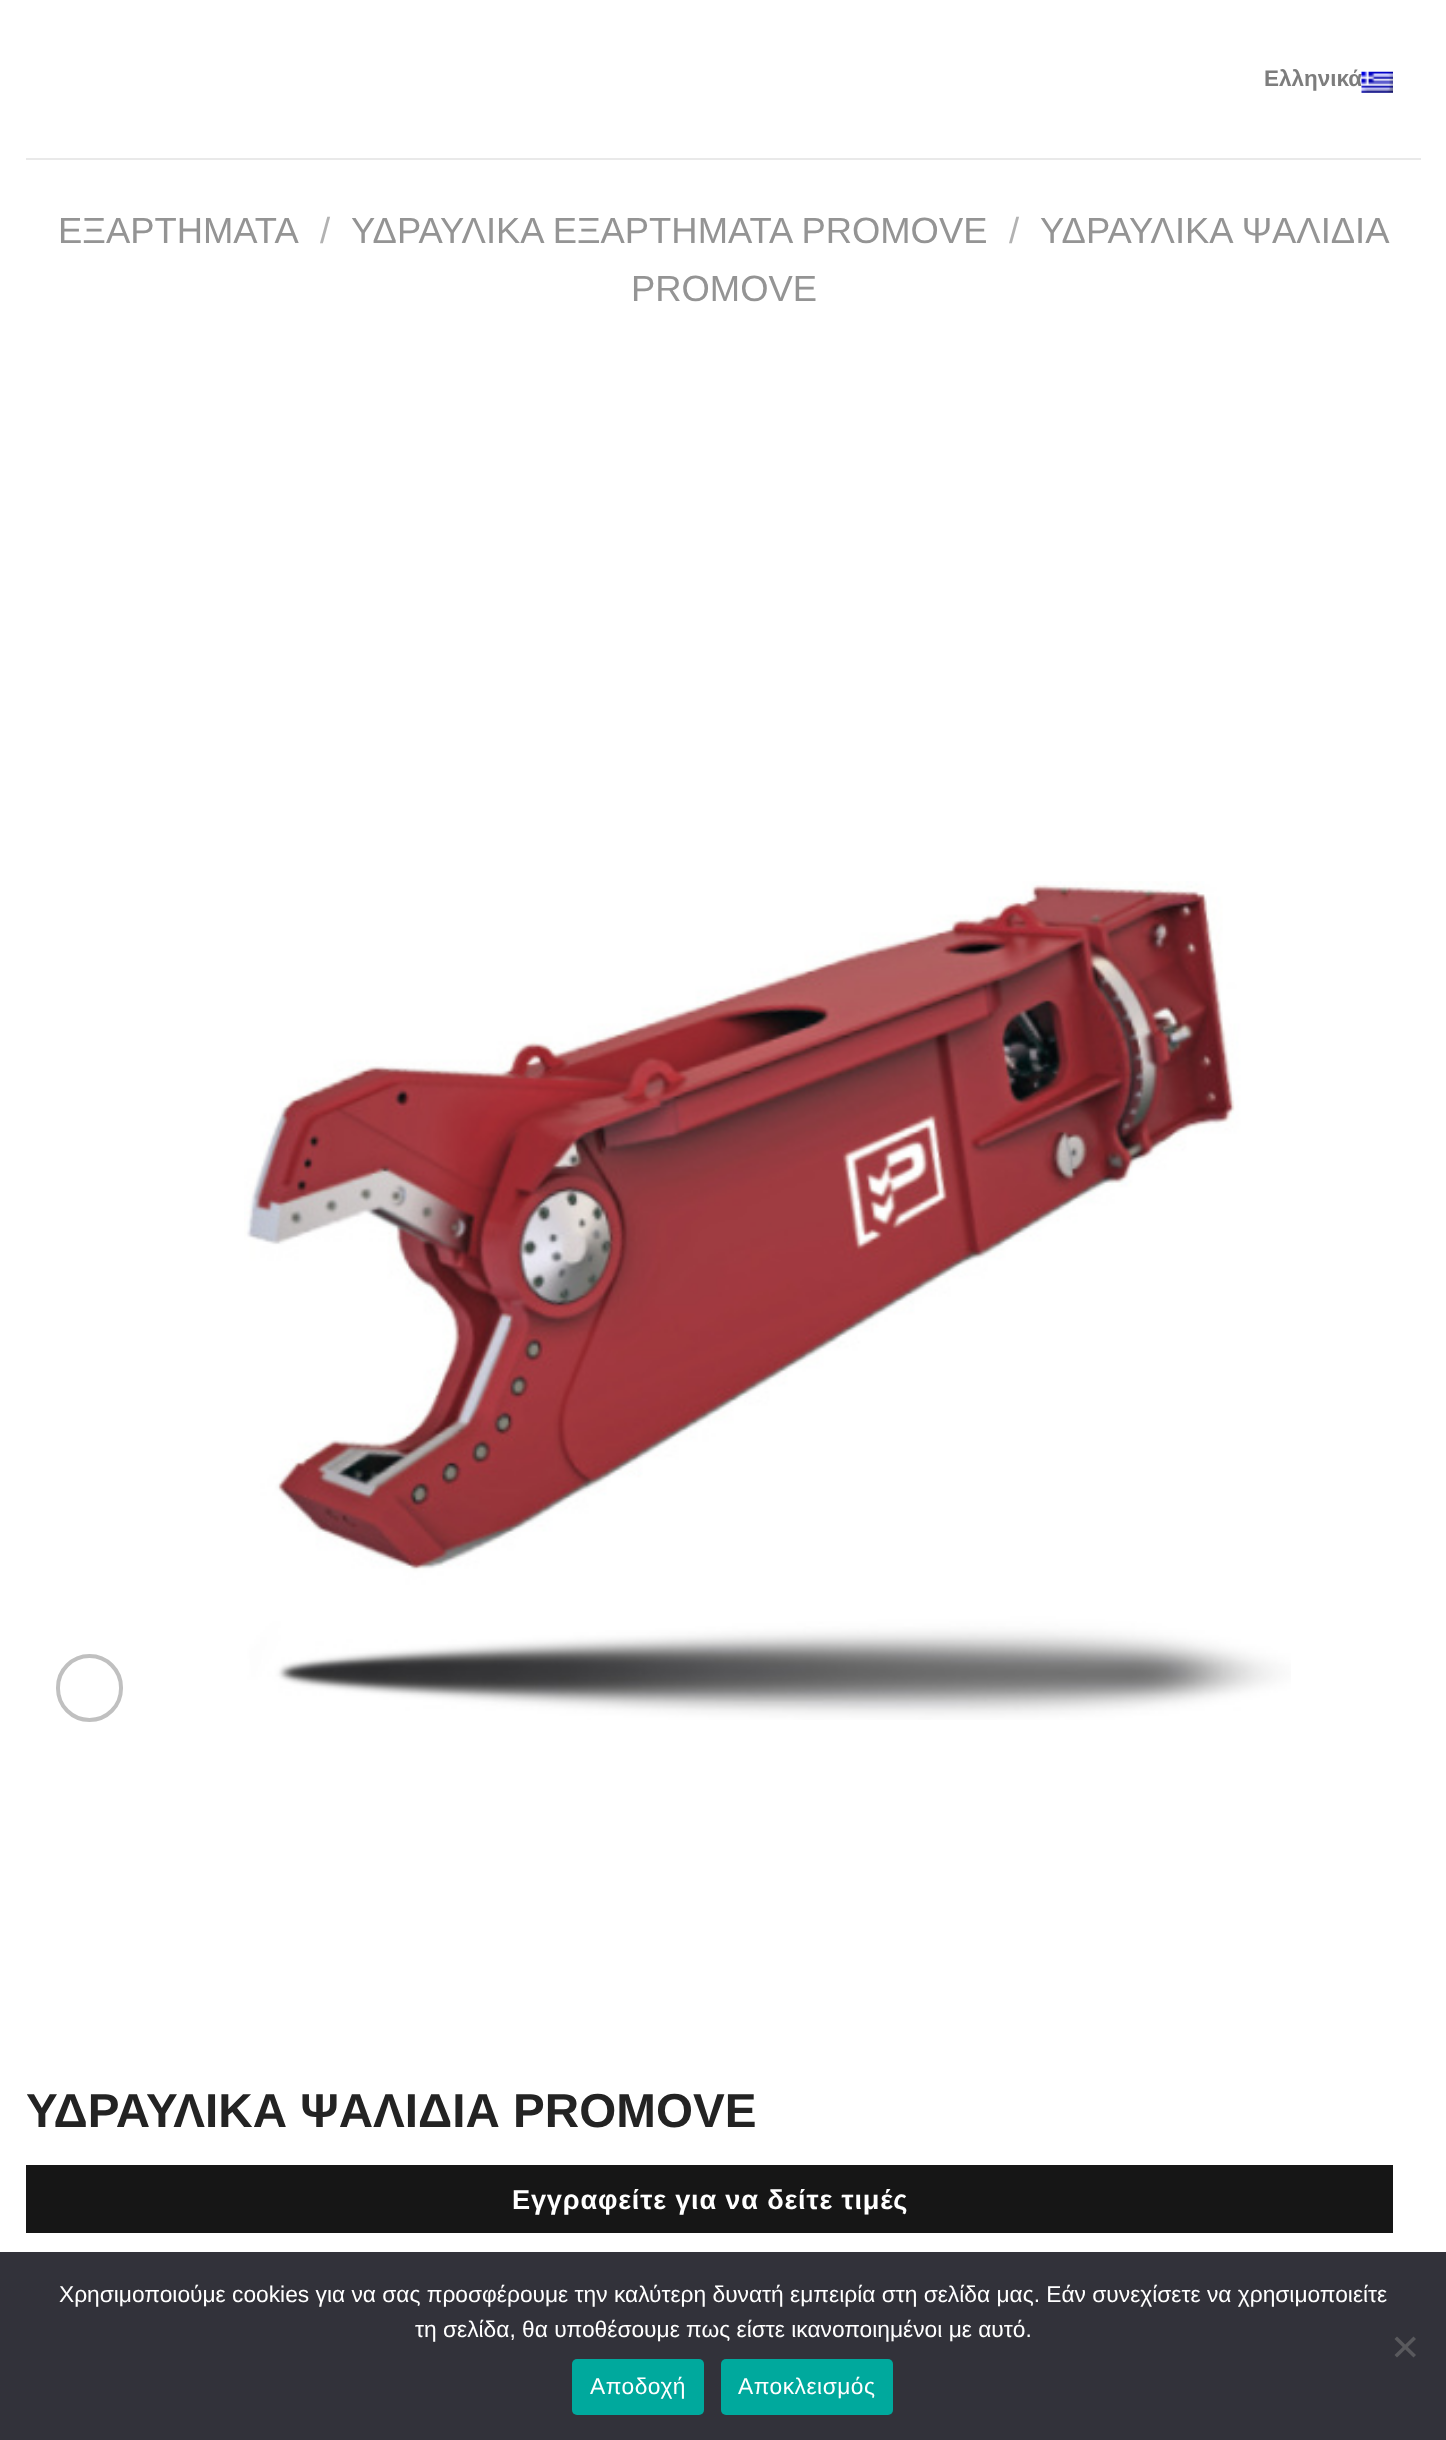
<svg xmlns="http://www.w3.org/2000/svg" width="1446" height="2440">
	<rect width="100%" height="100%" fill="#FFFFFF" />
	<text x="1264" y="86" font-family="Liberation Sans" font-size="22.5" font-weight="700" fill="#7D7D7D">Ελληνικά</text>
	<image x="1361" y="71" width="32" height="22" href="assets/img1.png" />
	<rect x="26" y="158" width="1395" height="2" fill="#E9E9E9" />
	<text x="58" y="243" font-family="Liberation Sans" font-size="36.4" fill="#949494">ΕΞΑΡΤΗΜΑΤΑ</text>
	<text x="320" y="243" font-family="Liberation Sans" font-size="36.4" fill="#B2B2B2">/</text>
	<text x="351" y="243" font-family="Liberation Sans" font-size="36.4" fill="#949494">ΥΔΡΑΥΛΙΚΑ ΕΞΑΡΤΗΜΑΤΑ PROMOVE</text>
	<text x="1009" y="243" font-family="Liberation Sans" font-size="36.4" fill="#B2B2B2">/</text>
	<g font-family="Liberation Sans" font-size="36.4" fill="#949494">
		<text x="1040" y="243">ΥΔΡΑΥΛΙΚΑ ΨΑΛΙΔΙΑ</text>
		<text x="631" y="301">PROMOVE</text>
	</g>
	<rect x="58" y="1656" width="63" height="64" rx="31.5" fill="none" stroke="#C0C0C0" stroke-width="4" />
	<image x="244" y="881" width="1047" height="839" href="assets/img2.png" />
	<text x="26" y="2127" font-family="Liberation Sans" font-size="47.6" font-weight="700" fill="#232323">ΥΔΡΑΥΛΙΚΑ ΨΑΛΙΔΙΑ PROMOVE</text>
	<rect x="26" y="2165" width="1367" height="68" fill="#161616" />
	<text x="512" y="2209" font-family="Liberation Sans" font-size="27.2" font-weight="700" letter-spacing="0.8" fill="#FFFFFF">Εγγραφείτε για να δείτε τιμές</text>
	<rect x="0" y="2252" width="1446" height="188" fill="#32323A" />
	<g font-family="Liberation Sans" font-size="22.75" fill="#FFFFFF">
		<text x="59" y="2302">Χρησιμοποιούμε cookies για να σας προσφέρουμε την καλύτερη δυνατή εμπειρία στη σελίδα μας. Εάν συνεχίσετε να χρησιμοποιείτε</text>
		<text x="415" y="2337">τη σελίδα, θα υποθέσουμε πως είστε ικανοποιημένοι με αυτό.</text>
	</g>
	<path d="M1413.5 2336.5L1416 2339L1397 2357.5L1394.5 2355Z" fill="#59595D" />
	<path d="M1394.5 2339L1397 2336.5L1416 2355L1413.5 2357.5Z" fill="#59595D" />
	<rect x="572" y="2359" width="132" height="56" rx="5" fill="#00A99D" />
	<text x="590" y="2394" font-family="Liberation Sans" font-size="22.75" letter-spacing="0.5" fill="#FFFFFF">Αποδοχή</text>
	<rect x="721" y="2359" width="172" height="56" rx="5" fill="#00A99D" />
	<text x="738" y="2394" font-family="Liberation Sans" font-size="22.75" letter-spacing="0.5" fill="#FFFFFF">Αποκλεισμός</text>
</svg>
